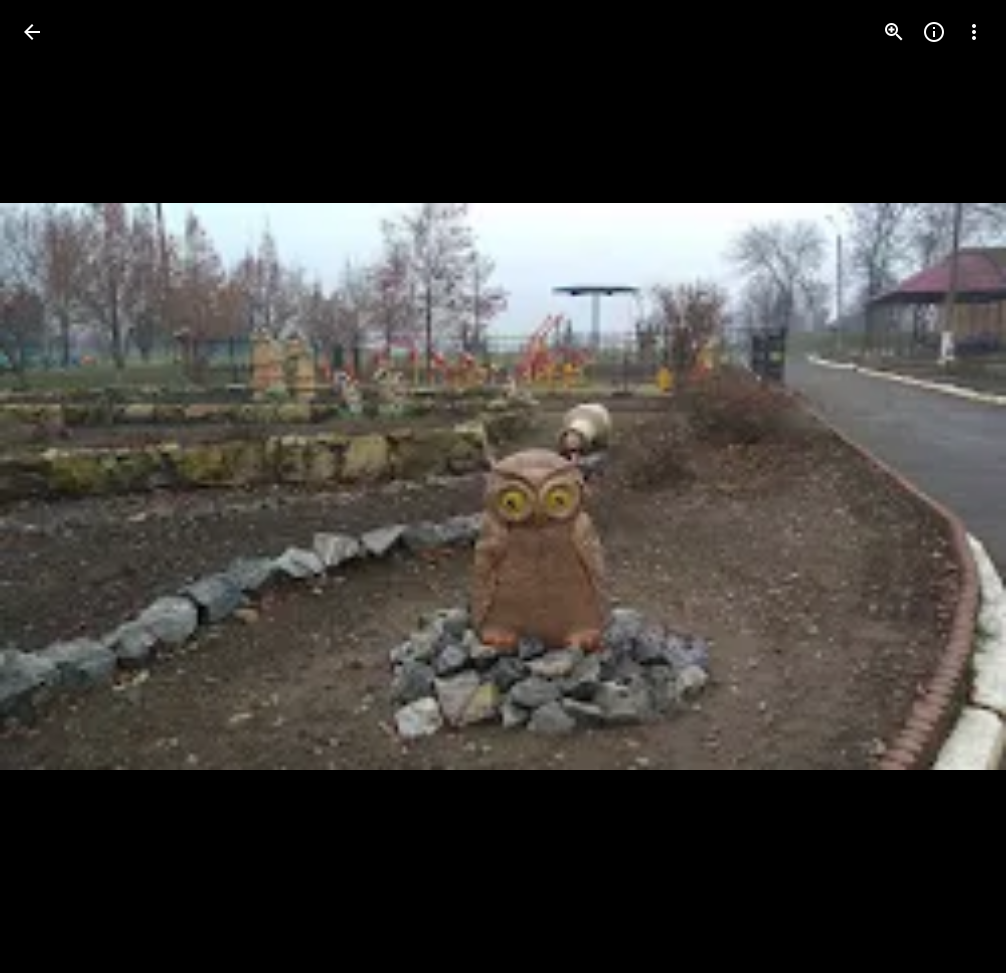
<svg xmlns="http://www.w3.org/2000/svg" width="1006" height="973">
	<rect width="100%" height="100%" fill="#000000" />
	<image x="24" y="24" width="16" height="16" href="assets/img1.png" />
	<image x="885" y="23" width="18" height="18" href="assets/img2.png" />
	<image x="924" y="22" width="20" height="20" href="assets/img3.png" />
	<image x="972" y="24" width="4" height="16" href="assets/img4.png" />
	<image x="0" y="203" width="1006" height="567" href="assets/img5.png" />
</svg>
